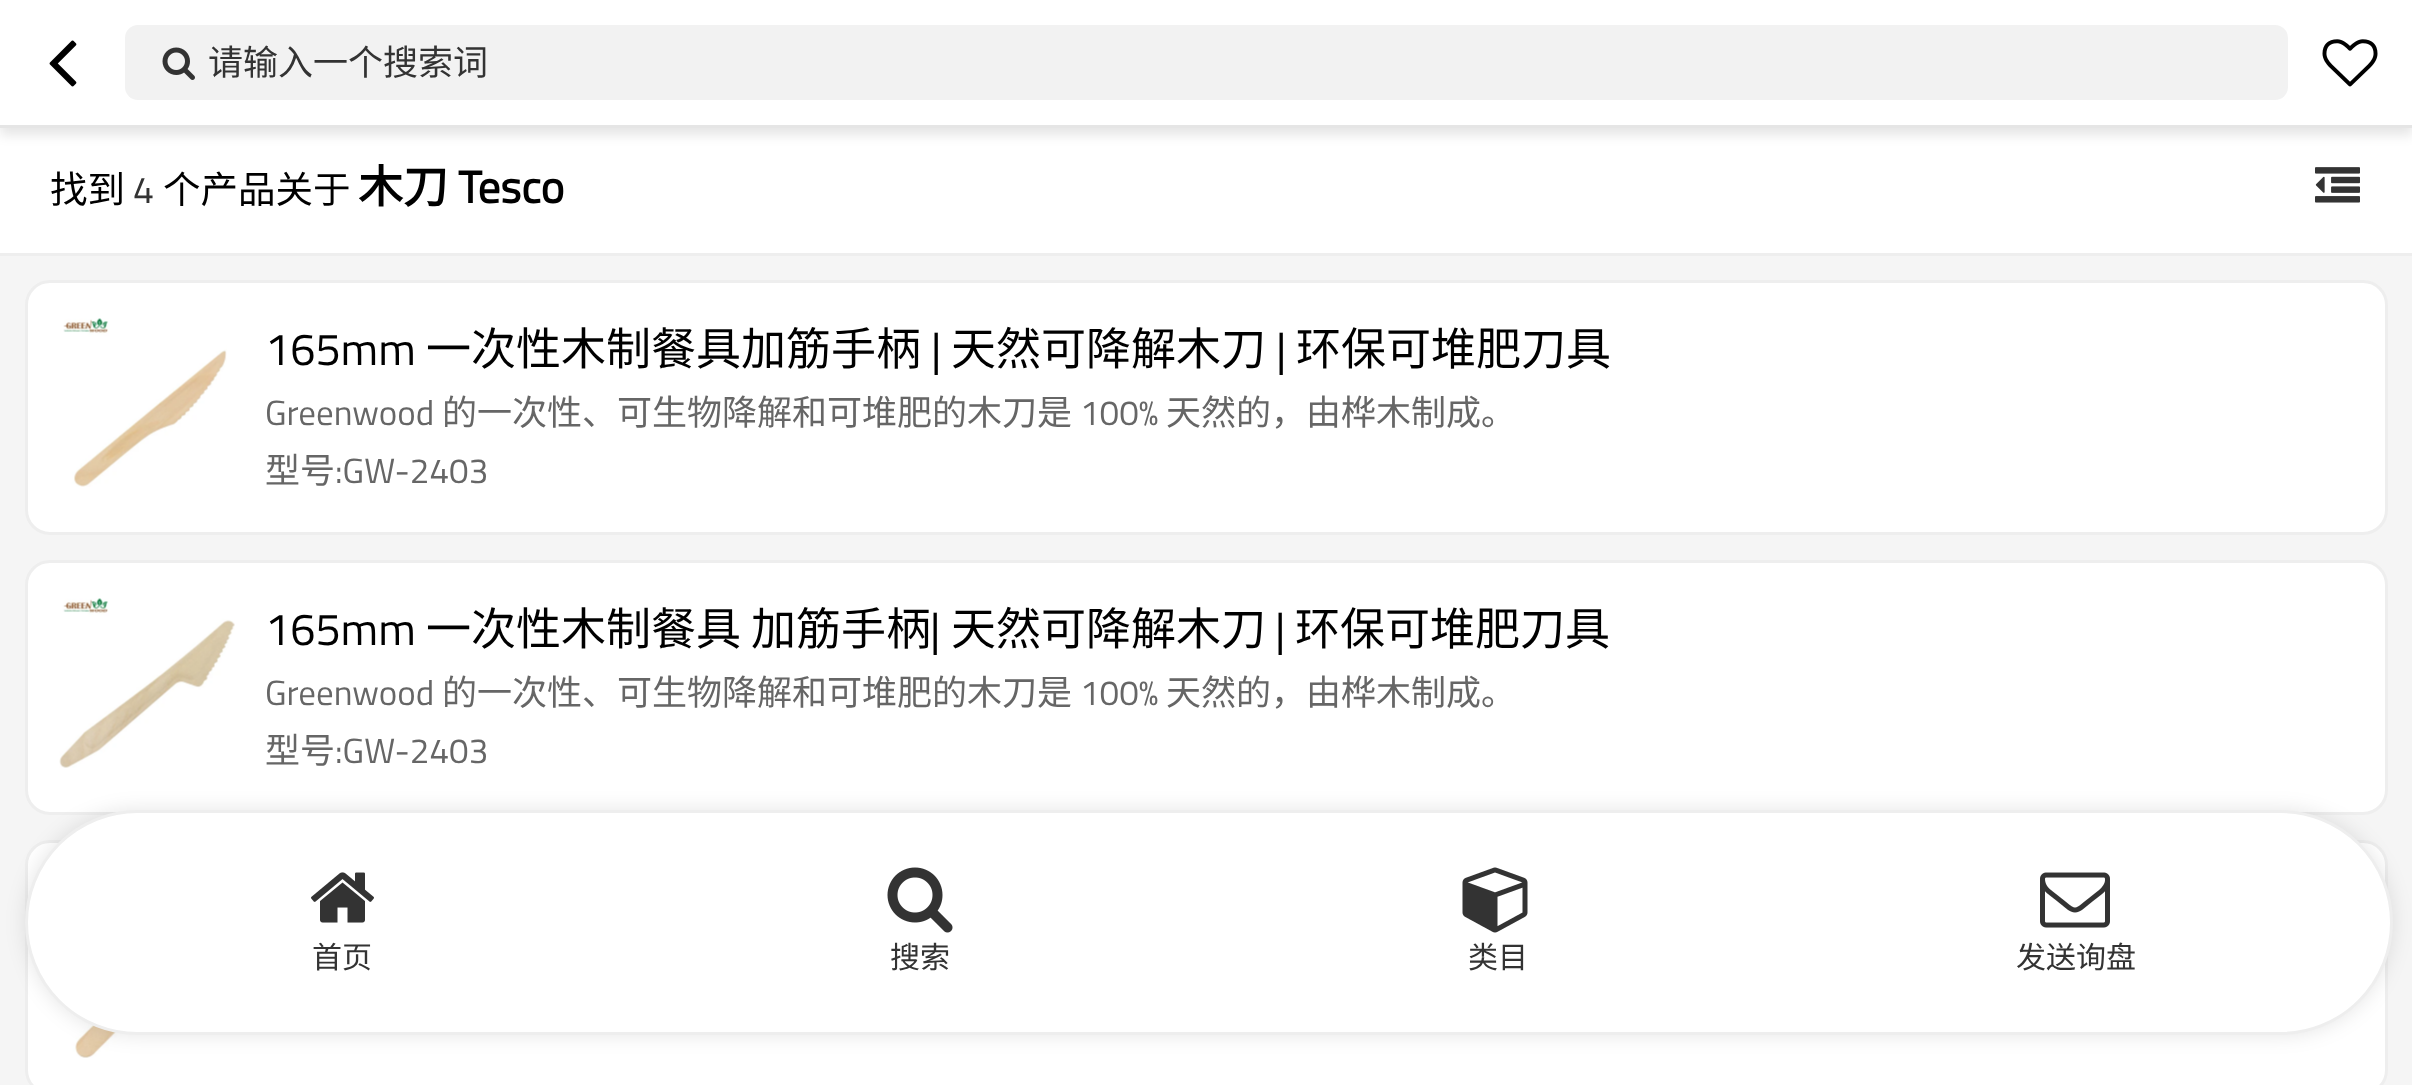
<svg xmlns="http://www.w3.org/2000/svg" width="2412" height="1085">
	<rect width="100%" height="100%" fill="#F5F5F5" />
	<rect x="0" y="128" width="2412" height="125" fill="#FFFFFF" />
	<rect x="0" y="8" width="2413" height="127" fill="#000000" fill-opacity="0.1" filter="blur(6px)" />
	<rect x="0" y="0" width="2412" height="125" fill="#FFFFFF" />
	<rect x="0" y="125" width="2412" height="3" fill="#E5E5E5" />
	<image x="49" y="40" width="28" height="47" href="assets/img1.png" />
	<rect x="125" y="25" width="2163" height="75" rx="13" fill="#F2F2F2" />
	<image x="162" y="47" width="33" height="33" href="assets/img2.png" />
	<text x="208" y="75" font-family="Noto Sans CJK SC" font-size="35" fill="#333333">请输入一个搜索词</text>
	<image x="2322" y="39" width="56" height="48" href="assets/img3.png" />
	<rect x="0" y="253" width="2412" height="3" fill="#EEEEEE" />
	<text x="50" y="203" font-family="Noto Sans CJK SC" font-size="37.5" fill="#000000">找到</text>
	<text x="133" y="203" font-family="Titillium Web" font-size="37.5" fill="#333333">4</text>
	<text x="163" y="203" font-family="Noto Sans CJK SC" font-size="37.5" fill="#000000">个产品关于</text>
	<text x="358" y="203" font-family="Noto Sans CJK SC" font-size="45" font-weight="700" fill="#000000">木刀</text>
	<text x="458" y="203" font-family="Titillium Web" font-size="45" font-weight="700" fill="#000000">Tesco</text>
	<image x="2315" y="167" width="45" height="36" href="assets/img4.png" />
	<rect x="26.5" y="281.5" width="2360" height="252" rx="23.5" fill="#FFFFFF" stroke="#EEEEEE" stroke-width="3" />
	<image x="63" y="318" width="164" height="169" href="assets/img5.png" />
	<text x="265" y="365" font-family="Titillium Web" font-size="45" fill="#000000">165mm</text>
	<text x="426" y="365" font-family="Noto Sans CJK SC" font-size="45" fill="#000000">一次性木制餐具加筋手柄</text>
	<text x="931" y="365" font-family="Titillium Web" font-size="45" fill="#000000">|</text>
	<text x="951" y="365" font-family="Noto Sans CJK SC" font-size="45" fill="#000000">天然可降解木刀</text>
	<text x="1276" y="365" font-family="Titillium Web" font-size="45" fill="#000000">|</text>
	<text x="1296" y="365" font-family="Noto Sans CJK SC" font-size="45" fill="#000000">环保可堆肥刀具</text>
	<text x="265" y="425" font-family="Titillium Web" font-size="35" fill="#666666">Greenwood</text>
	<text x="442" y="425" font-family="Noto Sans CJK SC" font-size="35" fill="#666666">的一次性、可生物降解和可堆肥的木刀是</text>
	<text x="1080" y="425" font-family="Titillium Web" font-size="35" fill="#666666">100%</text>
	<g font-family="Noto Sans CJK SC" font-size="35" fill="#666666">
		<text x="1166" y="425">天然的，由桦木制成。</text>
		<text x="265" y="483">型号</text>
	</g>
	<text x="335" y="483" font-family="Titillium Web" font-size="35" fill="#666666">:GW-2403</text>
	<rect x="26.5" y="561.5" width="2360" height="252" rx="23.5" fill="#FFFFFF" stroke="#EEEEEE" stroke-width="3" />
	<image x="59" y="598" width="176" height="170" href="assets/img6.png" />
	<text x="265" y="645" font-family="Titillium Web" font-size="45" fill="#000000">165mm</text>
	<text x="426" y="645" font-family="Noto Sans CJK SC" font-size="45" fill="#000000">一次性木制餐具 加筋手柄</text>
	<text x="930" y="645" font-family="Titillium Web" font-size="45" fill="#000000">|</text>
	<text x="951" y="645" font-family="Noto Sans CJK SC" font-size="45" fill="#000000">天然可降解木刀</text>
	<text x="1275" y="645" font-family="Titillium Web" font-size="45" fill="#000000">|</text>
	<text x="1295" y="645" font-family="Noto Sans CJK SC" font-size="45" fill="#000000">环保可堆肥刀具</text>
	<text x="265" y="705" font-family="Titillium Web" font-size="35" fill="#666666">Greenwood</text>
	<text x="442" y="705" font-family="Noto Sans CJK SC" font-size="35" fill="#666666">的一次性、可生物降解和可堆肥的木刀是</text>
	<text x="1080" y="705" font-family="Titillium Web" font-size="35" fill="#666666">100%</text>
	<g font-family="Noto Sans CJK SC" font-size="35" fill="#666666">
		<text x="1166" y="705">天然的，由桦木制成。</text>
		<text x="265" y="763">型号</text>
	</g>
	<text x="335" y="763" font-family="Titillium Web" font-size="35" fill="#666666">:GW-2403</text>
	<rect x="26.5" y="841.5" width="2360" height="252" rx="23.5" fill="#FFFFFF" stroke="#EEEEEE" stroke-width="3" />
	<image x="63" y="1006" width="161" height="52" href="assets/img7.png" />
	<rect x="25" y="810" width="2368" height="225" rx="112.5" fill="#000000" fill-opacity="0.1" filter="blur(10px)" />
	<rect x="26.5" y="811.5" width="2365" height="222" rx="111" fill="#FFFFFF" stroke="#EEEEEE" stroke-width="3" />
	<image x="311" y="872" width="63" height="51" href="assets/img8.png" />
	<text x="312" y="968" font-family="Noto Sans CJK SC" font-size="30" fill="#333333">首页</text>
	<image x="887" y="867" width="66" height="66" href="assets/img9.png" />
	<text x="890" y="968" font-family="Noto Sans CJK SC" font-size="30" fill="#333333">搜索</text>
	<image x="1462" y="867" width="66" height="66" href="assets/img10.png" />
	<text x="1468" y="968" font-family="Noto Sans CJK SC" font-size="30" fill="#333333">类目</text>
	<image x="2040" y="872" width="70" height="56" href="assets/img11.png" />
	<text x="2016" y="968" font-family="Noto Sans CJK SC" font-size="30" fill="#333333">发送询盘</text>
</svg>
